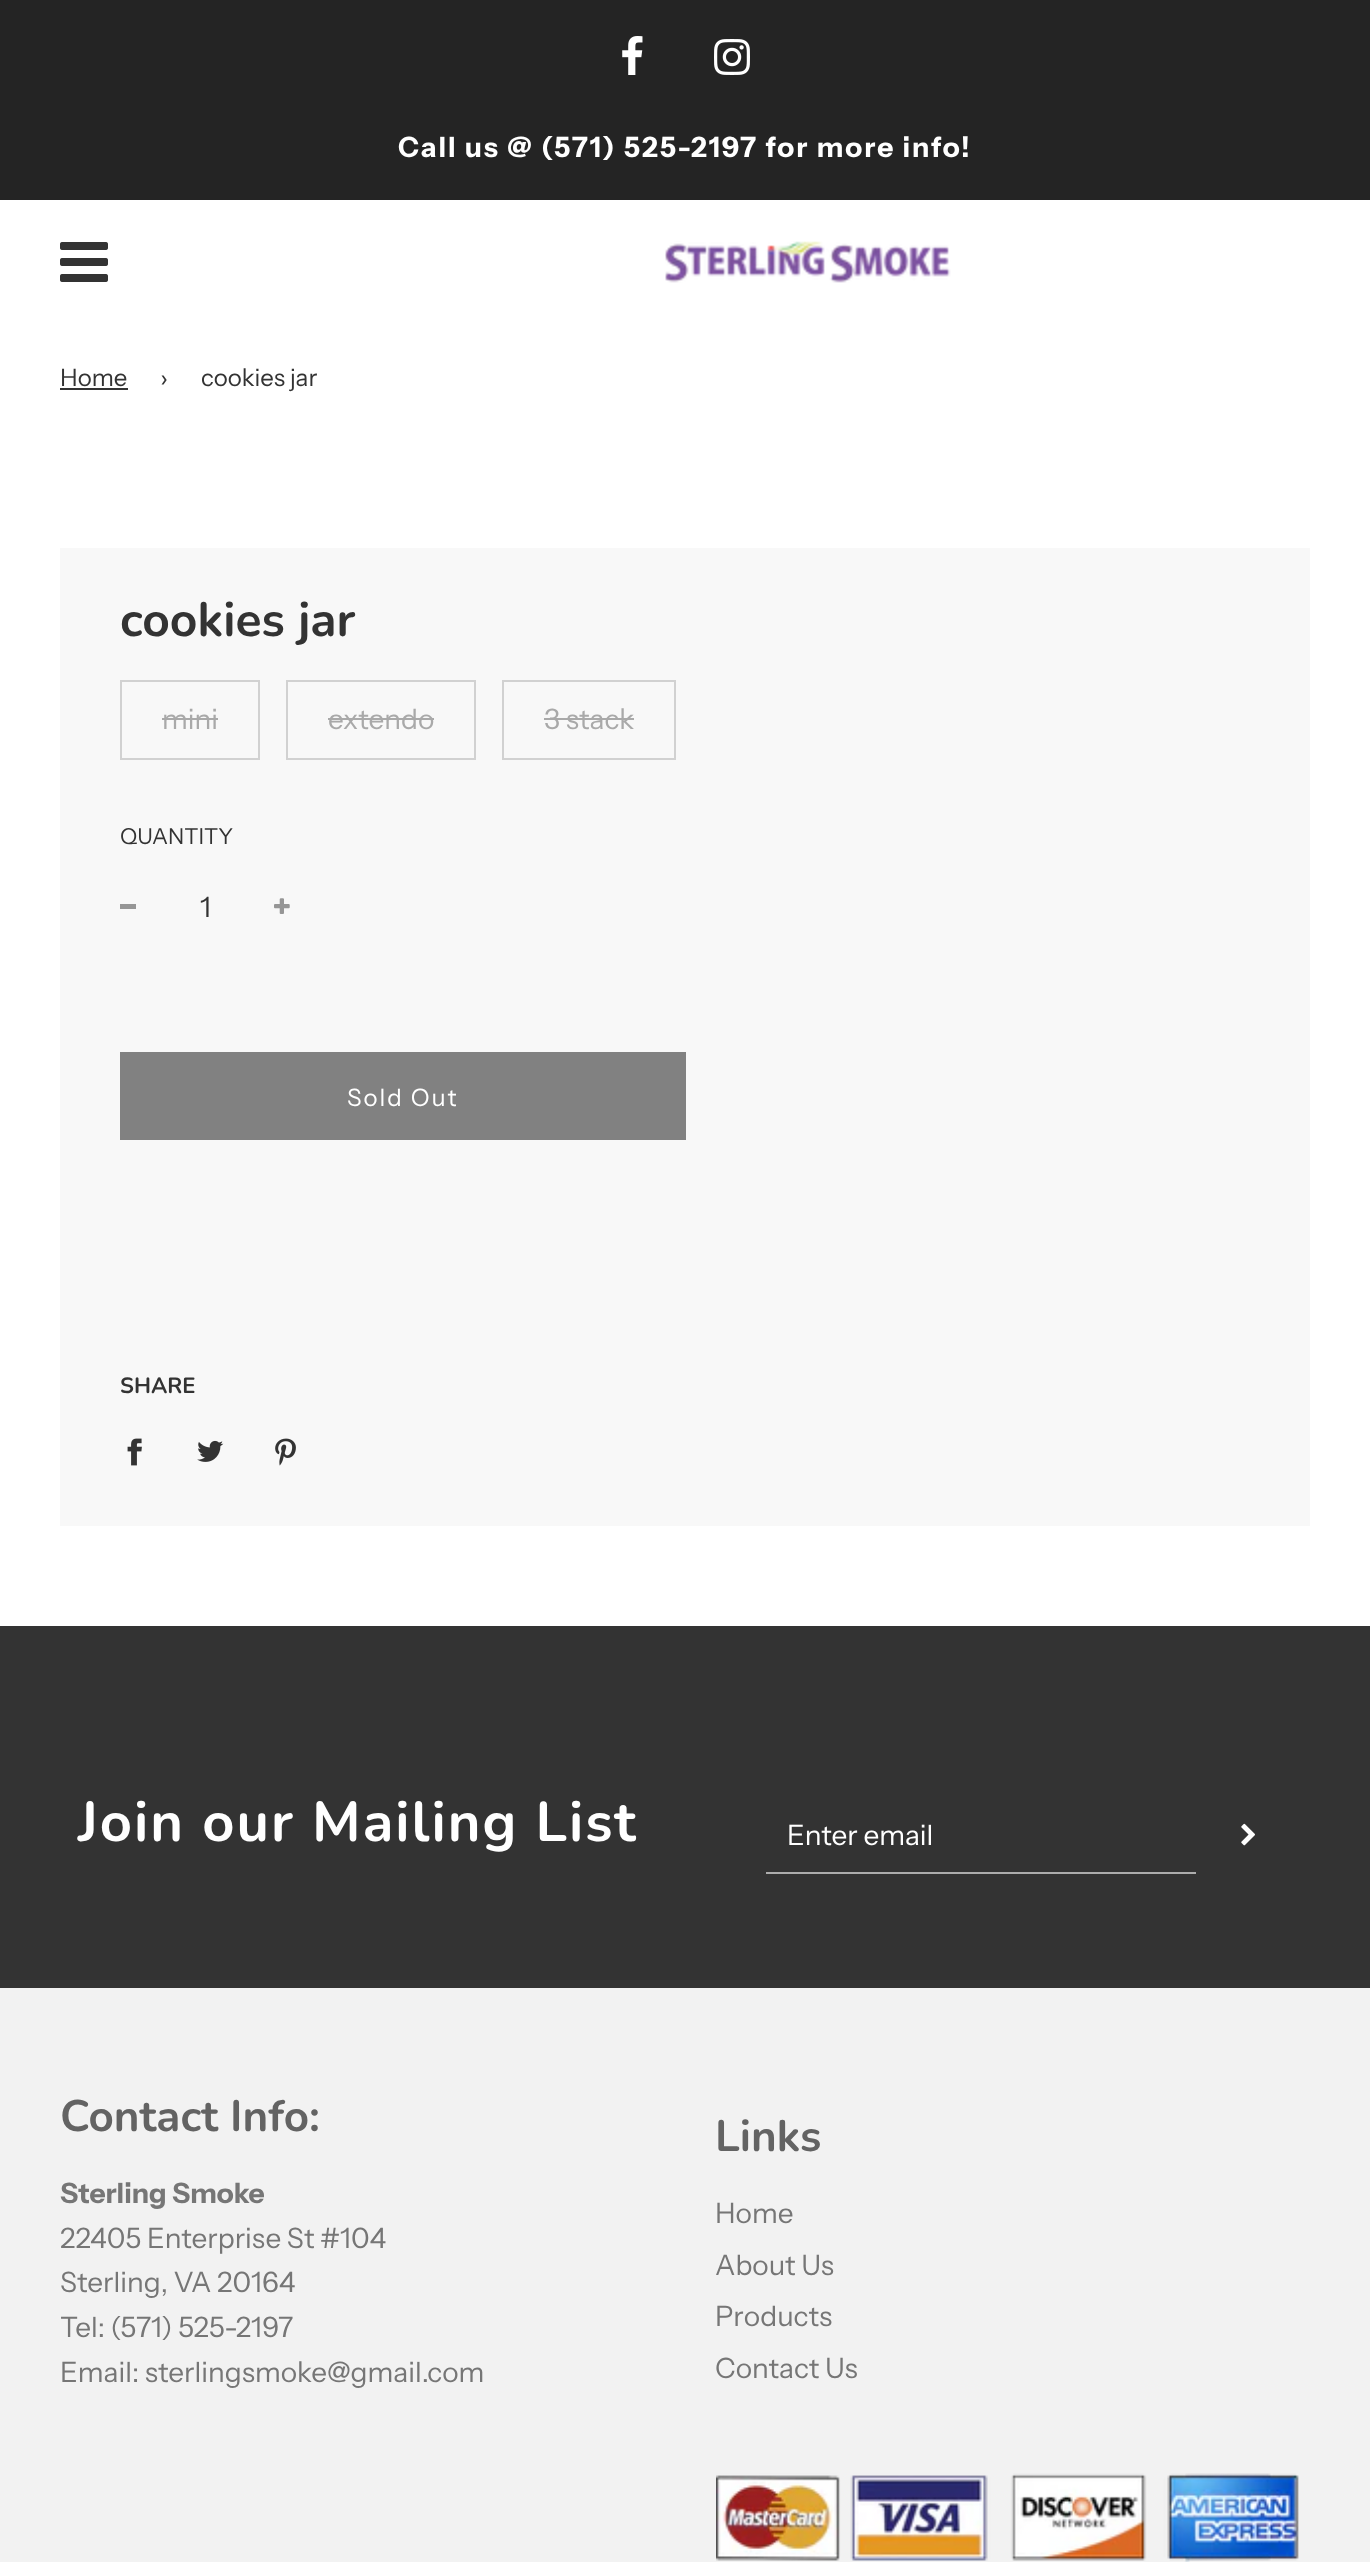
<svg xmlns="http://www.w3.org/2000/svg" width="1370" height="2562">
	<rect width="100%" height="100%" fill="#FFFFFF" />
	<rect x="0" y="0" width="1370" height="200" fill="#242424" />
	<image x="622" y="36" width="21" height="39" href="assets/img1.png" />
	<image x="714" y="39" width="36" height="36" href="assets/img2.png" />
	<text x="398" y="157" font-family="Instrument Sans" font-size="28" font-weight="700" letter-spacing="2" fill="#FFFFFF">Call us @ (571) 525-2197 for more info!</text>
	<image x="60" y="242" width="48" height="40" href="assets/img3.png" />
	<image x="665" y="241" width="286" height="42" href="assets/img4.png" />
	<text x="60" y="386" font-family="Instrument Sans" font-size="24" fill="#333333">Home</text>
	<rect x="60" y="388" width="68" height="2" fill="#333333" />
	<g font-family="Instrument Sans" font-size="24" fill="#333333">
		<text x="160" y="386">›</text>
		<text x="201" y="386">cookies jar</text>
	</g>
	<rect x="60" y="548" width="1250" height="978" fill="#F8F8F8" />
	<text x="120" y="636" font-family="Nunito" font-size="48" font-weight="700" fill="#333333">cookies jar</text>
	<rect x="121" y="681" width="138" height="78" fill="none" stroke="#D1D1D1" stroke-width="2" />
	<text x="162" y="729" font-family="Instrument Sans" font-size="28" fill="#A9A9A9">mini</text>
	<rect x="162" y="718" width="56" height="2" fill="#A9A9A9" />
	<rect x="287" y="681" width="188" height="78" fill="none" stroke="#D1D1D1" stroke-width="2" />
	<text x="328" y="729" font-family="Instrument Sans" font-size="28" fill="#A9A9A9">extendo</text>
	<rect x="328" y="718" width="106" height="2" fill="#A9A9A9" />
	<rect x="503" y="681" width="172" height="78" fill="none" stroke="#D1D1D1" stroke-width="2" />
	<text x="544" y="729" font-family="Instrument Sans" font-size="28" fill="#A9A9A9">3 stack</text>
	<rect x="544" y="718" width="90" height="2" fill="#A9A9A9" />
	<text x="120" y="844" font-family="Instrument Sans" font-size="22" fill="#333333">QUANTITY</text>
	<rect x="120" y="904" width="16" height="5" fill="#969696" />
	<text x="200" y="917" font-family="Instrument Sans" font-size="28" fill="#333333">1</text>
	<image x="274" y="898" width="16" height="16" href="assets/img5.png" />
	<rect x="120" y="1052" width="566" height="88" fill="#818181" />
	<text x="347" y="1106" font-family="Instrument Sans" font-size="24" letter-spacing="2" fill="#FFFFFF">Sold Out</text>
	<text x="120" y="1393" font-family="Nunito" font-size="22" font-weight="700" fill="#333333">SHARE</text>
	<image x="127" y="1438" width="15" height="28" href="assets/img6.png" />
	<image x="197" y="1440" width="27" height="22" href="assets/img7.png" />
	<image x="275" y="1438" width="21" height="28" href="assets/img8.png" />
	<rect x="0" y="1626" width="1370" height="362" fill="#333333" />
	<text x="78" y="1841" font-family="Nunito" font-size="56" font-weight="700" letter-spacing="2" fill="#FFFFFF">Join our Mailing List</text>
	<rect x="766" y="1872" width="430" height="2" fill="#ADADAD" />
	<text x="787" y="1845" font-family="Instrument Sans" font-size="28" fill="#FFFFFF">Enter email</text>
	<image x="1241" y="1823" width="14" height="23" href="assets/img9.png" />
	<rect x="0" y="1988" width="1370" height="574" fill="#F2F2F2" />
	<text x="60" y="2131" font-family="Nunito" font-size="44" font-weight="700" fill="#636363">Contact Info:</text>
	<text x="60" y="2203" font-family="Instrument Sans" font-size="28" font-weight="700" fill="#767676">Sterling Smoke</text>
	<g font-family="Instrument Sans" font-size="28" fill="#767676">
		<text x="60" y="2248">22405 Enterprise St #104</text>
		<text x="60" y="2292">Sterling, VA 20164</text>
		<text x="60" y="2337">Tel: (571) 525-2197</text>
		<text x="60" y="2382">Email: sterlingsmoke@gmail.com</text>
	</g>
	<text x="715" y="2151" font-family="Nunito" font-size="44" font-weight="700" fill="#636363">Links</text>
	<g font-family="Instrument Sans" font-size="28" fill="#767676">
		<text x="715" y="2223">Home</text>
		<text x="715" y="2275">About Us</text>
		<text x="715" y="2326">Products</text>
		<text x="715" y="2378">Contact Us</text>
	</g>
	<image x="716" y="2473" width="583" height="89" href="assets/img10.png" />
</svg>
